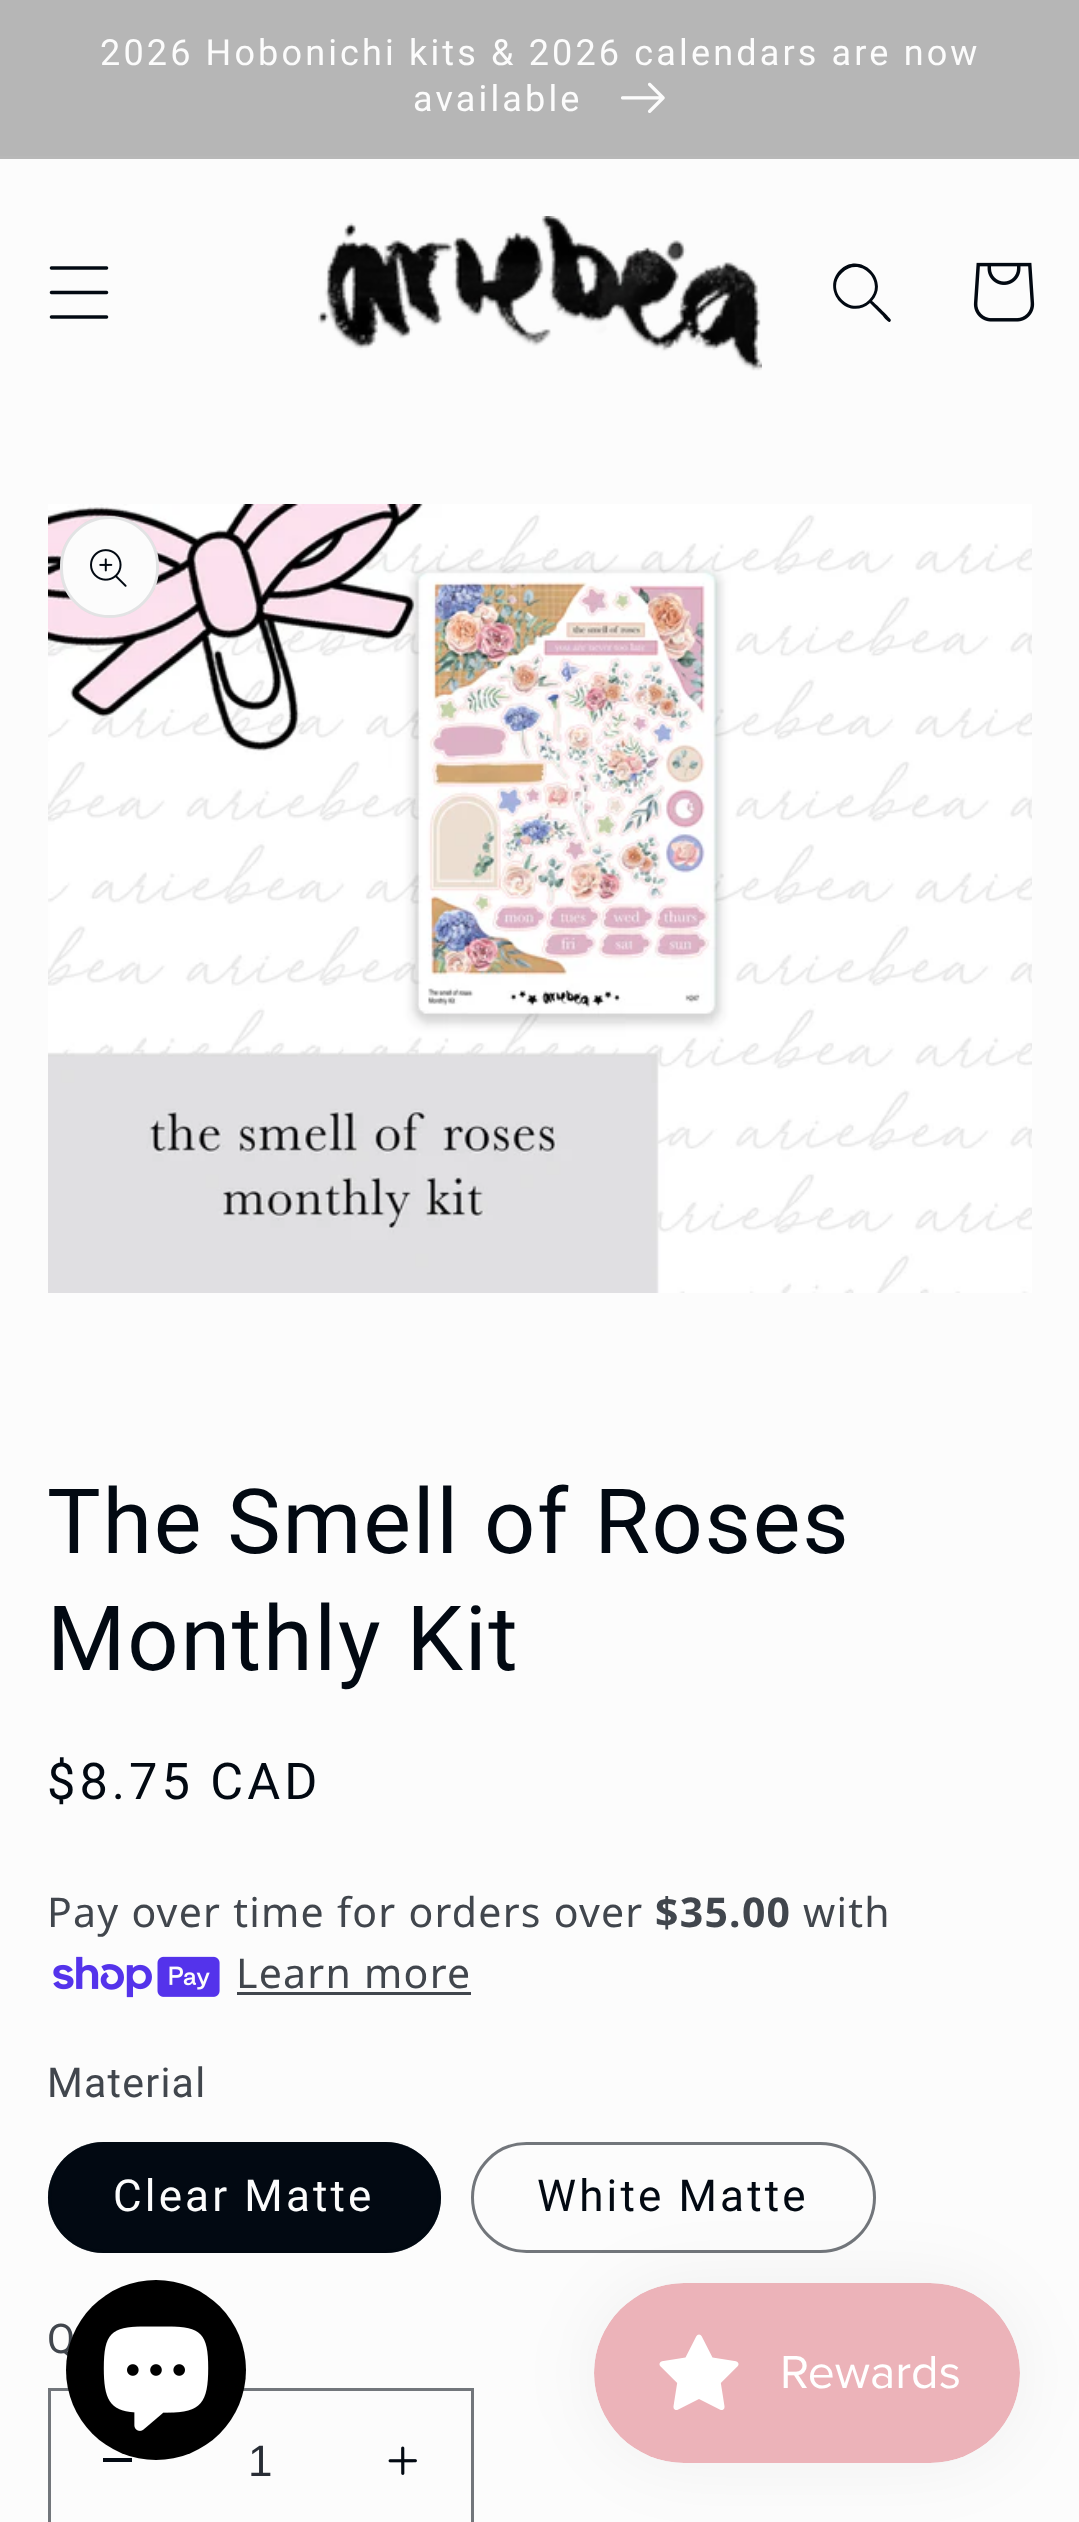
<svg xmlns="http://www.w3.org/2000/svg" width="1079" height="2522">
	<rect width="100%" height="100%" fill="#FCFCFC" />
	<rect x="0" y="156" width="1079" height="3" fill="#B8B8B8" />
	<rect x="0" y="0" width="1079" height="156" fill="#B6B6B6" />
	<g font-family="Roboto" font-size="36" letter-spacing="3.15" fill="#FCFCFC">
		<text x="100" y="65">2026 Hobonichi kits &amp; 2026 calendars are now</text>
		<text x="413" y="111">available</text>
	</g>
	<image x="621" y="82" width="44" height="31" href="assets/img1.png" />
	<image x="49" y="266" width="60" height="53" href="assets/img2.png" />
	<image x="318" y="216" width="444" height="155" href="assets/img3.png" />
	<path d="M869 300C851 318 824 290 842 273C860 255 887 282 869 300ZM870 303C848 322 820 290 840 270C860 250 891 280 872 301C875 303 891 319 891 320L890 322C888 323 883 316 882 315Z" fill="#020912" fill-rule="evenodd" />
	<image x="973" y="262" width="62" height="60" href="assets/img4.png" />
	<image x="48" y="504" width="984" height="789" href="assets/img5.png" />
	<rect x="60" y="516" width="99" height="102" rx="49.5" fill="#FCFCFC" />
	<rect x="61.5" y="517.5" width="96" height="99" rx="48" fill="none" stroke="#020912" stroke-opacity="0.1" stroke-width="3" />
	<image x="90" y="549" width="37" height="38" href="assets/img6.png" />
	<g font-family="Roboto" font-size="90" letter-spacing="1.75" fill="#020912">
		<text x="47" y="1553">The Smell of Roses</text>
		<text x="47" y="1670">Monthly Kit</text>
	</g>
	<text x="47" y="1799" font-family="Roboto" font-size="50.5" letter-spacing="4" fill="#020912">$8.75 CAD</text>
	<text x="47" y="1927" font-family="Noto Sans" font-size="41" letter-spacing="1.25" fill="#41464D">Pay over time for orders over</text>
	<text x="655" y="1927" font-family="Noto Sans" font-size="41" font-weight="700" letter-spacing="1.25" fill="#41464D">$35.00</text>
	<text x="803" y="1927" font-family="Noto Sans" font-size="41" letter-spacing="1.25" fill="#41464D">with</text>
	<image x="53" y="1956" width="167" height="42" href="assets/img7.png" />
	<text x="236" y="1988" font-family="Noto Sans" font-size="41" letter-spacing="1.25" fill="#41464D">Learn more</text>
	<rect x="237" y="1992" width="234" height="3" fill="#41464D" />
	<text x="47" y="2097" font-family="Roboto" font-size="41" letter-spacing="1.25" fill="#41464D">Material</text>
	<rect x="48" y="2142" width="393" height="111" rx="55.5" fill="#020912" />
	<rect x="49.5" y="2143.5" width="390" height="108" rx="54" fill="none" stroke="#020912" stroke-opacity="0.55" stroke-width="3" />
	<text x="113" y="2211" font-family="Roboto" font-size="44" letter-spacing="3.15" fill="#FCFCFC">Clear Matte</text>
	<rect x="472.5" y="2143.5" width="402" height="108" rx="54" fill="none" stroke="#72767B" stroke-width="3" />
	<text x="537" y="2211" font-family="Roboto" font-size="44" letter-spacing="3.15" fill="#020912">White Matte</text>
	<text x="47" y="2353" font-family="Roboto" font-size="41" letter-spacing="1.25" fill="#41464D">Q</text>
	<rect x="103" y="2458" width="29" height="4" fill="#020912" />
	<image x="388" y="2446" width="29" height="29" href="assets/img8.png" />
	<rect x="49.5" y="2389.5" width="423" height="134" fill="none" stroke="#72767B" stroke-width="3" />
	<text x="248" y="2476" font-family="Liberation Sans" font-size="44" fill="#282D35">1</text>
	<circle cx="156" cy="2370" r="90" fill="#000000" />
	<image x="103" y="2326" width="106" height="105" href="assets/img9.png" />
	<rect x="594" y="2283" width="426" height="180" rx="90" fill="#000000" fill-opacity="0.05" filter="blur(37.5px)" />
	<image x="594" y="2283" width="426" height="180" href="assets/img10.png" />
</svg>
